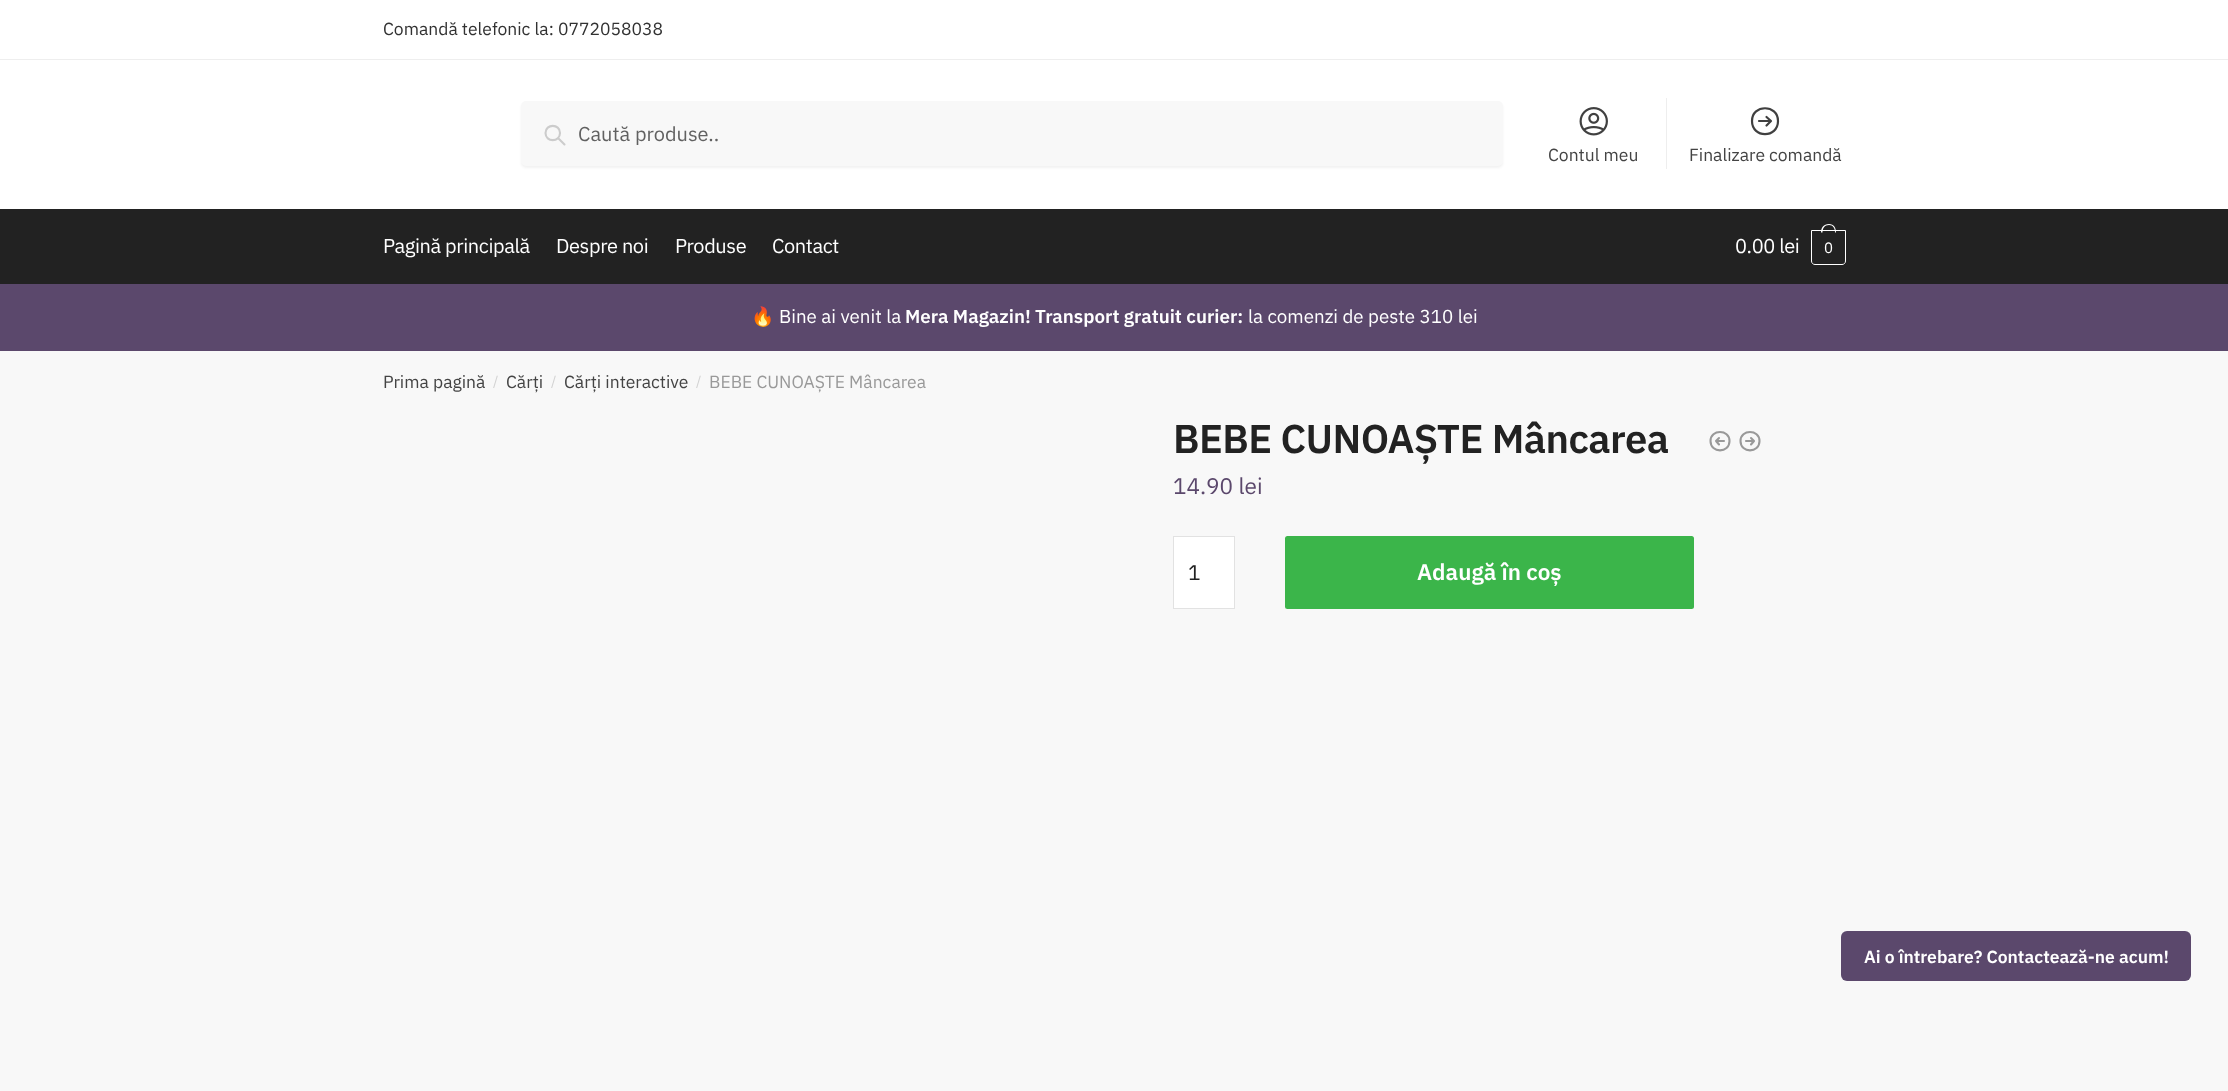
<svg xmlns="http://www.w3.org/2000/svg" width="2228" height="1091">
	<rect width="100%" height="100%" fill="#FFFFFF" />
	<rect x="0" y="59" width="2228" height="1" fill="#EEEEEE" />
	<text x="383" y="35" font-family="IBM Plex Sans" font-size="17.5" fill="#323232">Comandă telefonic la: 0772058038</text>
	<rect x="521" y="103" width="982" height="65" rx="5" fill="#000000" fill-opacity="0.05" filter="blur(1px)" />
	<rect x="521" y="101" width="982" height="65" rx="5" fill="#F8F8F8" />
	<path d="M564.5 144.5L558 138M560 133C560 142.5 545.5 142.5 545.5 133C545.5 123.5 560 123.5 560 133Z" fill="none" stroke="#CCCCCC" stroke-width="2.1" stroke-linecap="round" stroke-linejoin="round" />
	<text x="578" y="141" font-family="IBM Plex Sans" font-size="20" fill="#616161">Caută produse..</text>
	<image x="1579" y="107" width="29" height="29" href="assets/img1.png" />
	<text x="1548" y="161" font-family="IBM Plex Sans" font-size="17.5" fill="#444444">Contul meu</text>
	<rect x="1666" y="98" width="1" height="71" fill="#EEEEEE" />
	<path d="M1766.5 117L1771 121M1771 121L1766.5 125.5M1771 121H1759M1778 121C1778 138.5 1752 138.5 1752 121C1752 104 1778 104 1778 121Z" fill="none" stroke="#404040" stroke-width="2.2" stroke-linecap="round" stroke-linejoin="round" />
	<text x="1689" y="161" font-family="IBM Plex Sans" font-size="17.5" fill="#444444">Finalizare comandă</text>
	<rect x="0" y="209" width="2228" height="75" fill="#222222" />
	<g font-family="IBM Plex Sans" font-size="20" letter-spacing="-0.4" fill="#FFFFFF">
		<text x="383" y="253">Pagină principală</text>
		<text x="556" y="253">Despre noi</text>
		<text x="675" y="253">Produse</text>
		<text x="772" y="253">Contact</text>
		<text x="1735" y="253">0.00 lei</text>
	</g>
	<path d="M1811.5 230.5H1845.5V261C1845.5 263 1844 264.5 1842 264.5H1815C1813 264.5 1811.5 263 1811.5 261Z" fill="none" stroke="#FFFFFF" />
	<path d="M1829 224C1834 224 1836 228 1836 232.5H1821C1821 228 1823.5 224 1829 224ZM1829 225C1833 225 1835 228.5 1835 232.5H1822.5C1822.5 228.5 1824.5 225 1829 225Z" fill="#FFFFFF" fill-rule="evenodd" />
	<text x="1824" y="253" font-family="IBM Plex Sans" font-size="15" letter-spacing="-1" fill="#FFFFFF">0</text>
	<rect x="0" y="284" width="2228" height="67" fill="#5B486C" />
	<text x="751" y="323" font-family="Noto Color Emoji" font-size="18.75" fill="#FFFFFF">🔥</text>
	<text x="779" y="323" font-family="IBM Plex Sans" font-size="18.75" fill="#FFFFFF">Bine ai venit la</text>
	<text x="905" y="323" font-family="IBM Plex Sans" font-size="18.75" font-weight="600" fill="#FFFFFF">Mera Magazin! Transport gratuit curier:</text>
	<text x="1248" y="323" font-family="IBM Plex Sans" font-size="18.75" fill="#FFFFFF">la comenzi de peste 310 lei</text>
	<rect x="0" y="351" width="2228" height="740" fill="#F8F8F8" />
	<text x="383" y="388" font-family="IBM Plex Sans" font-size="17.5" fill="#444444">Prima pagină</text>
	<text x="493" y="386" font-family="IBM Plex Sans" font-size="14" fill="#D2D2D2">/</text>
	<text x="506" y="388" font-family="IBM Plex Sans" font-size="17.5" fill="#444444">Cărți</text>
	<text x="551" y="386" font-family="IBM Plex Sans" font-size="14" fill="#D2D2D2">/</text>
	<text x="564" y="388" font-family="IBM Plex Sans" font-size="17.5" fill="#444444">Cărți interactive</text>
	<text x="696" y="386" font-family="IBM Plex Sans" font-size="14" fill="#D2D2D2">/</text>
	<text x="709" y="388" font-family="IBM Plex Sans" font-size="17.5" fill="#999999">BEBE CUNOAȘTE Mâncarea</text>
	<text x="1173" y="453" font-family="IBM Plex Sans" font-size="40" font-weight="600" letter-spacing="-0.6" fill="#222222">BEBE CUNOAȘTE Mâncarea</text>
	<path d="M1719 444.5L1716 441M1716 441L1719 438M1716 441H1724M1710.5 441C1710.5 429 1729.5 429 1729.5 441C1729.5 453.5 1710.5 453.5 1710.5 441ZM1751 438L1754 441M1754 441L1751 444.5M1754 441H1746M1759.5 441C1759.5 453.5 1740.5 453.5 1740.5 441C1740.5 429 1759.5 429 1759.5 441Z" fill="none" stroke="#999999" stroke-width="2.1" stroke-linecap="round" stroke-linejoin="round" />
	<text x="1173" y="494" font-family="IBM Plex Sans" font-size="22.5" fill="#5B486C">14.90 lei</text>
	<rect x="1173.5" y="536.5" width="61" height="72" fill="#FFFFFF" stroke="#E2E2E2" />
	<text x="1188" y="580" font-family="IBM Plex Sans" font-size="21" fill="#222222">1</text>
	<rect x="1285" y="536" width="409" height="73" rx="2.5" fill="#3BB54A" />
	<text x="1417" y="580" font-family="IBM Plex Sans" font-size="22.5" font-weight="600" fill="#FFFFFF">Adaugă în coș</text>
	<rect x="1841" y="931" width="350" height="50" rx="6" fill="#5B486C" />
	<text x="1864" y="963" font-family="IBM Plex Sans" font-size="17.5" font-weight="600" fill="#FFFFFF">Ai o întrebare? Contactează-ne acum!</text>
</svg>
